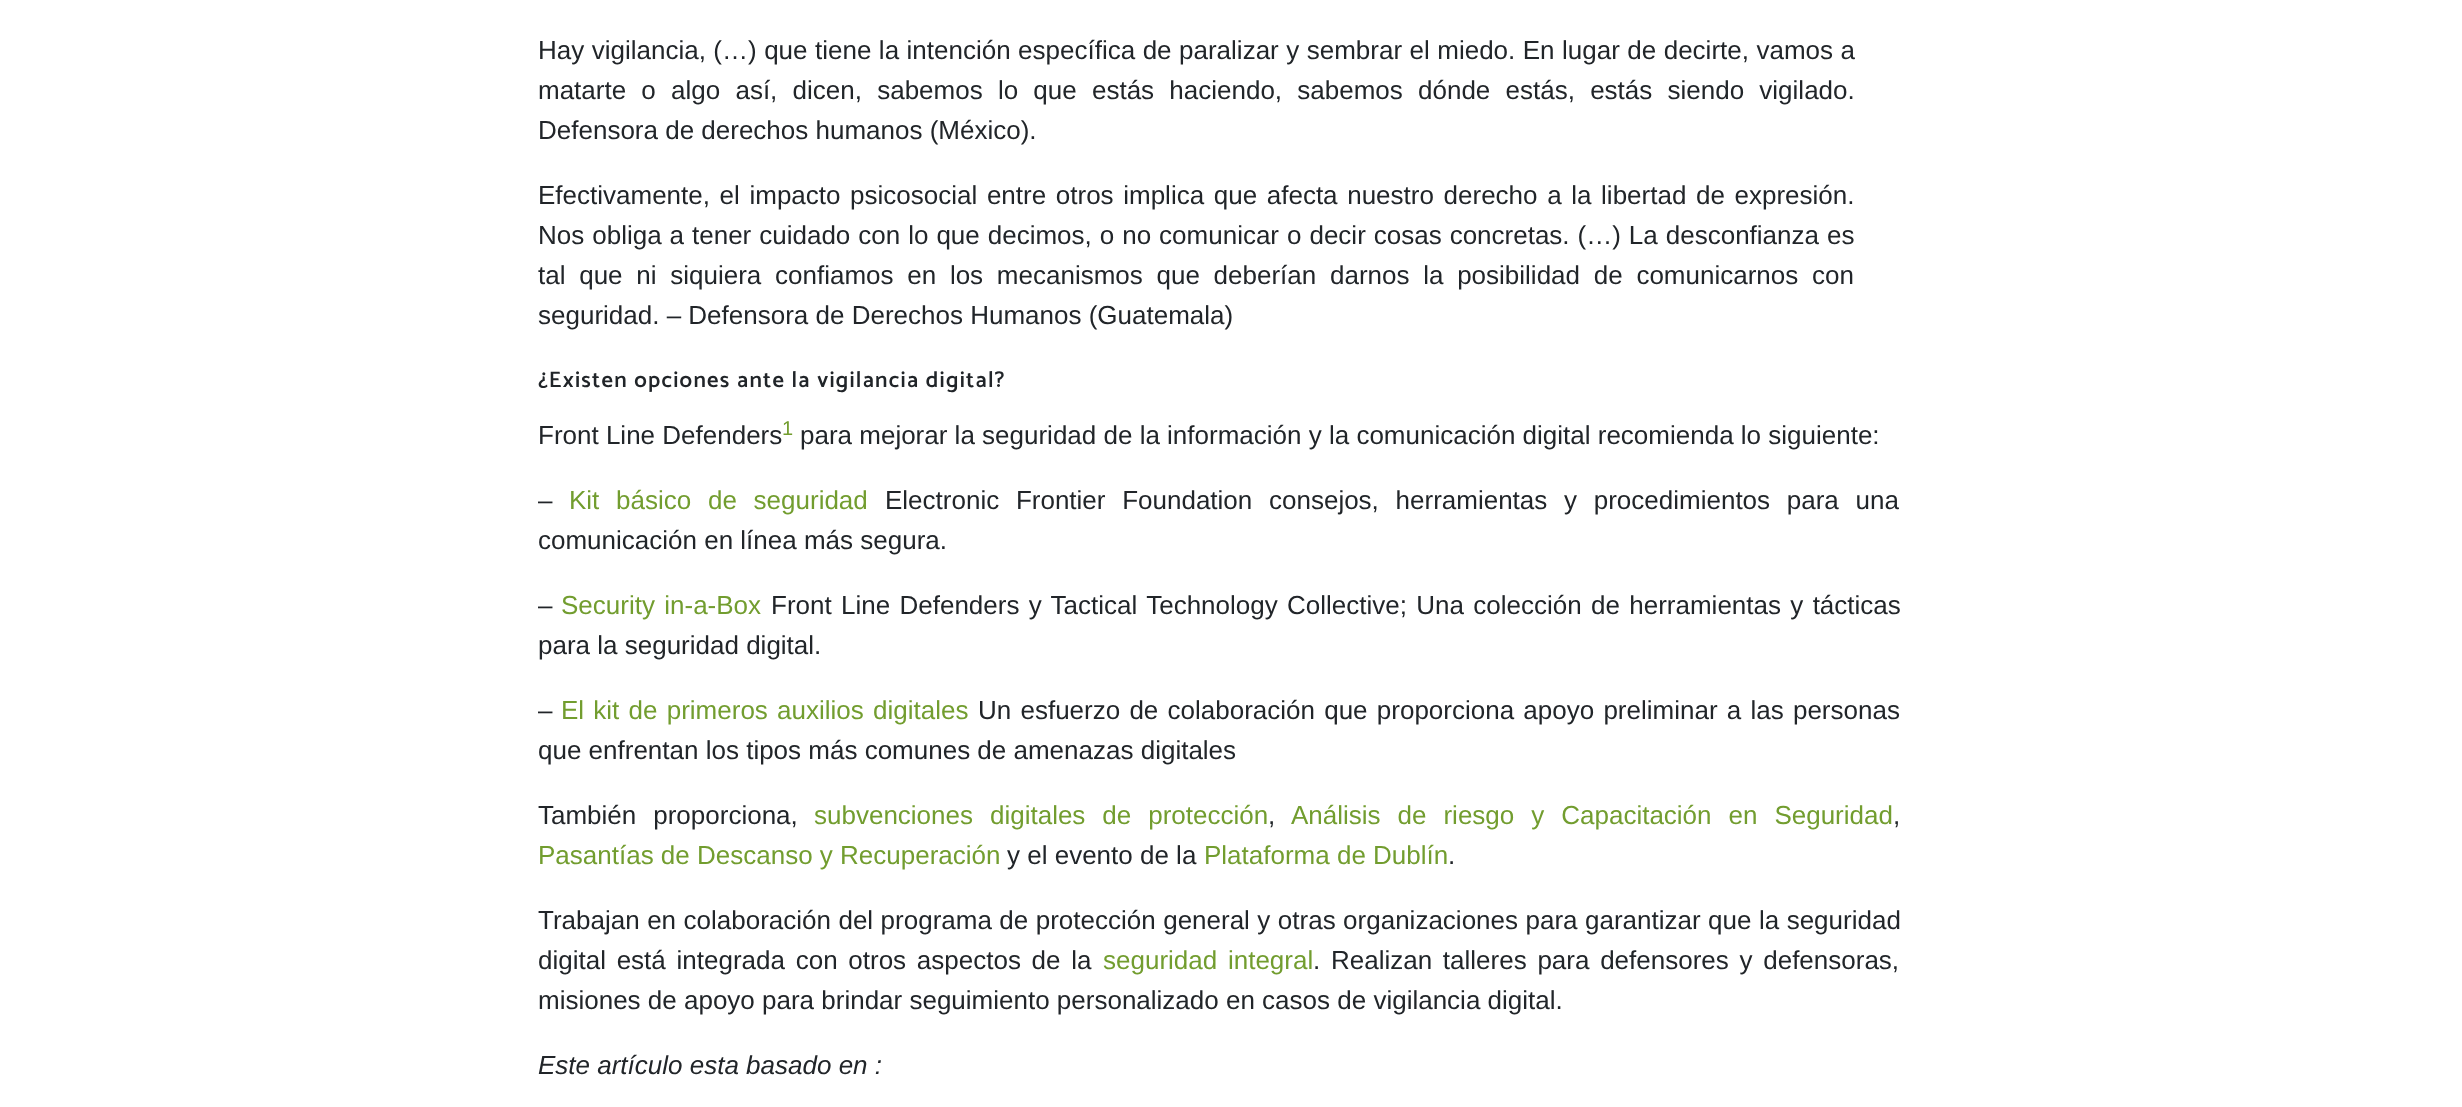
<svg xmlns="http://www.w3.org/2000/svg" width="2462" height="1107">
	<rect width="100%" height="100%" fill="#FFFFFF" />
	<g font-family="Liberation Sans" font-size="26" fill="#212529">
		<text x="538" y="59" word-spacing="0.25">Hay vigilancia, (…) que tiene la intención específica de paralizar y sembrar el miedo. En lugar de decirte, vamos a</text>
		<text x="538" y="99" word-spacing="8">matarte o algo así, dicen, sabemos lo que estás haciendo, sabemos dónde estás, estás siendo vigilado.</text>
		<text x="538" y="139">Defensora de derechos humanos (México).</text>
		<text x="538" y="204" word-spacing="2.4">Efectivamente, el impacto psicosocial entre otros implica que afecta nuestro derecho a la libertad de expresión.</text>
		<text x="538" y="244" word-spacing="0.75">Nos obliga a tener cuidado con lo que decimos, o no comunicar o decir cosas concretas. (…) La desconfianza es</text>
		<text x="538" y="284" word-spacing="6.5">tal que ni siquiera confiamos en los mecanismos que deberían darnos la posibilidad de comunicarnos con</text>
		<text x="538" y="324">seguridad. – Defensora de Derechos Humanos (Guatemala)</text>
	</g>
	<text x="538" y="387" font-family="Catamaran" font-size="22.5" font-weight="600" letter-spacing="1.25" fill="#212529">¿Existen opciones ante la vigilancia digital?</text>
	<text x="538" y="444" font-family="Liberation Sans" font-size="26" fill="#212529">Front Line Defenders</text>
	<text x="782" y="435" font-family="Liberation Sans" font-size="20" fill="#729D2F">1</text>
	<g font-family="Liberation Sans" font-size="26" fill="#212529">
		<text x="800" y="444">para mejorar la seguridad de la información y la comunicación digital recomienda lo siguiente:</text>
		<text x="538" y="509">–</text>
	</g>
	<text x="569" y="509" word-spacing="9.5" font-family="Liberation Sans" font-size="26" fill="#729D2F">Kit básico de seguridad</text>
	<g font-family="Liberation Sans" font-size="26" fill="#212529">
		<text x="885" y="509" word-spacing="9.5">Electronic Frontier Foundation consejos, herramientas y procedimientos para una</text>
		<text x="538" y="549">comunicación en línea más segura.</text>
		<text x="538" y="614">–</text>
	</g>
	<text x="561" y="614" word-spacing="2.1" font-family="Liberation Sans" font-size="26" fill="#729D2F">Security in-a-Box</text>
	<g font-family="Liberation Sans" font-size="26" fill="#212529">
		<text x="771" y="614" word-spacing="2.1">Front Line Defenders y Tactical Technology Collective; Una colección de herramientas y tácticas</text>
		<text x="538" y="654">para la seguridad digital.</text>
		<text x="538" y="719">–</text>
	</g>
	<text x="561" y="719" word-spacing="2" font-family="Liberation Sans" font-size="26" fill="#729D2F">El kit de primeros auxilios digitales</text>
	<g font-family="Liberation Sans" font-size="26" fill="#212529">
		<text x="978" y="719" word-spacing="2">Un esfuerzo de colaboración que proporciona apoyo preliminar a las personas</text>
		<text x="538" y="759">que enfrentan los tipos más comunes de amenazas digitales</text>
		<text x="538" y="824" word-spacing="9.75">También proporciona,</text>
	</g>
	<text x="814" y="824" word-spacing="9.75" font-family="Liberation Sans" font-size="26" fill="#729D2F">subvenciones digitales de protección</text>
	<text x="1268" y="824" font-family="Liberation Sans" font-size="26" fill="#212529">,</text>
	<text x="1291" y="824" word-spacing="9.75" font-family="Liberation Sans" font-size="26" fill="#729D2F">Análisis de riesgo y Capacitación en Seguridad</text>
	<text x="1893" y="824" font-family="Liberation Sans" font-size="26" fill="#212529">,</text>
	<text x="538" y="864" font-family="Liberation Sans" font-size="26" fill="#729D2F">Pasantías de Descanso y Recuperación</text>
	<text x="1007" y="864" font-family="Liberation Sans" font-size="26" fill="#212529">y el evento de la</text>
	<text x="1204" y="864" font-family="Liberation Sans" font-size="26" fill="#729D2F">Plataforma de Dublín</text>
	<g font-family="Liberation Sans" font-size="26" fill="#212529">
		<text x="1448" y="864">.</text>
		<text x="538" y="929" word-spacing="0.25">Trabajan en colaboración del programa de protección general y otras organizaciones para garantizar que la seguridad</text>
		<text x="538" y="969" word-spacing="3.5">digital está integrada con otros aspectos de la</text>
	</g>
	<text x="1103" y="969" word-spacing="3.5" font-family="Liberation Sans" font-size="26" fill="#729D2F">seguridad integral</text>
	<g font-family="Liberation Sans" font-size="26" fill="#212529">
		<text x="1313" y="969" word-spacing="3.5">. Realizan talleres para defensores y defensoras,</text>
		<text x="538" y="1009">misiones de apoyo para brindar seguimiento personalizado en casos de vigilancia digital.</text>
	</g>
	<text x="538" y="1074" font-family="Liberation Sans" font-size="26" font-style="italic" fill="#212529">Este artículo esta basado en :</text>
</svg>
